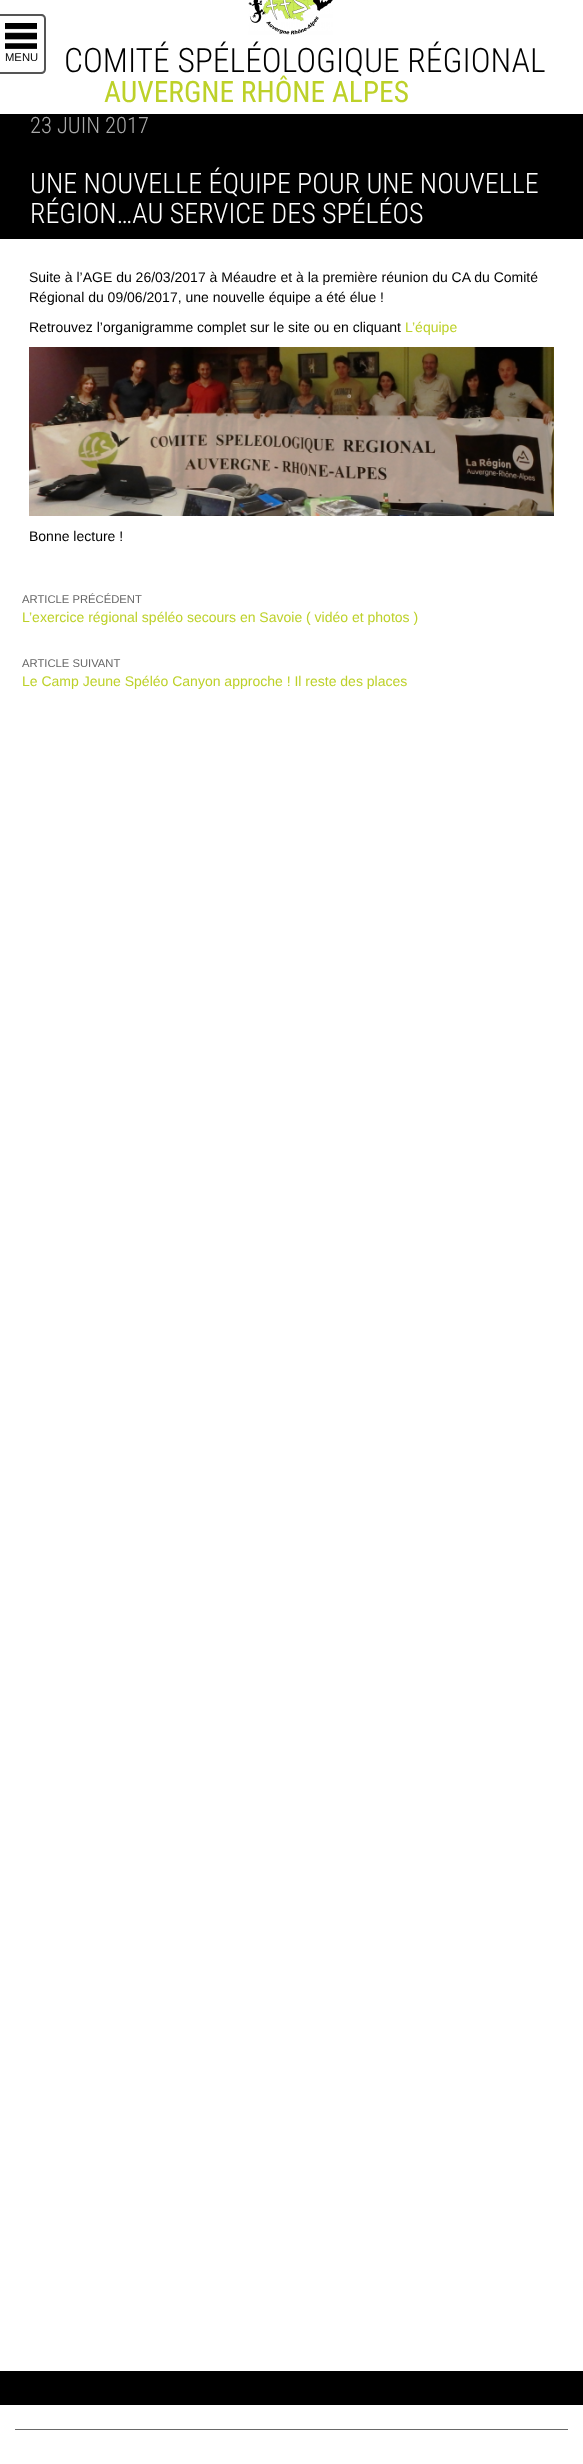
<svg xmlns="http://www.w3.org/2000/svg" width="583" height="2464">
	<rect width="100%" height="100%" fill="#FFFFFF" />
	<path d="M-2 14H41C44 14 46 16 46 19V69C46 72 44 74 41 74H-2ZM-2 16H41C43 16 44 17 44 19V69C44 71 43 72 41 72H-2Z" fill="#555555" fill-rule="evenodd" />
	<image x="5" y="23" width="32" height="26" href="assets/img1.png" />
	<text x="5" y="61" font-family="Liberation Sans" font-size="11.25" fill="#000000">MENU</text>
	<image x="248" y="0" width="85" height="35" href="assets/img2.png" />
	<text x="64" y="72" font-family="Roboto Condensed" font-size="33.6" font-weight="300" fill="#000000">COMITÉ SPÉLÉOLOGIQUE RÉGIONAL</text>
	<text x="104" y="102" font-family="Roboto Condensed" font-size="29.4" fill="#BDD129">AUVERGNE RHÔNE ALPES</text>
	<rect x="0" y="114" width="583" height="125" fill="#000000" />
	<text x="30" y="133" font-family="Roboto Condensed" font-size="22.5" font-weight="300" fill="#AAAAAA">23 JUIN 2017</text>
	<g font-family="Roboto Condensed" font-size="28" font-weight="300" fill="#FFFFFF">
		<text x="30" y="193">UNE NOUVELLE ÉQUIPE POUR UNE NOUVELLE</text>
		<text x="30" y="223">RÉGION…AU SERVICE DES SPÉLÉOS</text>
	</g>
	<g font-family="Liberation Sans" font-size="14" fill="#000000">
		<text x="29" y="282">Suite à l’AGE du 26/03/2017 à Méaudre et à la première réunion du CA du Comité</text>
		<text x="29" y="302">Régional du 09/06/2017, une nouvelle équipe a été élue !</text>
		<text x="29" y="332">Retrouvez l’organigramme complet sur le site ou en cliquant</text>
	</g>
	<text x="405" y="332" font-family="Liberation Sans" font-size="14" fill="#BDD129">L’équipe</text>
	<image x="29" y="347" width="525" height="169" href="assets/img3.png" />
	<text x="29" y="541" font-family="Liberation Sans" font-size="14" fill="#000000">Bonne lecture !</text>
	<text x="22" y="603" font-family="Liberation Sans" font-size="11.25" fill="#666666">ARTICLE PRÉCÉDENT</text>
	<text x="22" y="622" font-family="Liberation Sans" font-size="14" fill="#BDD129">L’exercice régional spéléo secours en Savoie ( vidéo et photos )</text>
	<text x="22" y="667" font-family="Liberation Sans" font-size="11.25" fill="#666666">ARTICLE SUIVANT</text>
	<text x="22" y="686" font-family="Liberation Sans" font-size="14" fill="#BDD129">Le Camp Jeune Spéléo Canyon approche ! Il reste des places</text>
	<rect x="0" y="2371" width="583" height="34" fill="#000000" />
	<rect x="15" y="2429" width="553" height="1" fill="#696969" />
</svg>
